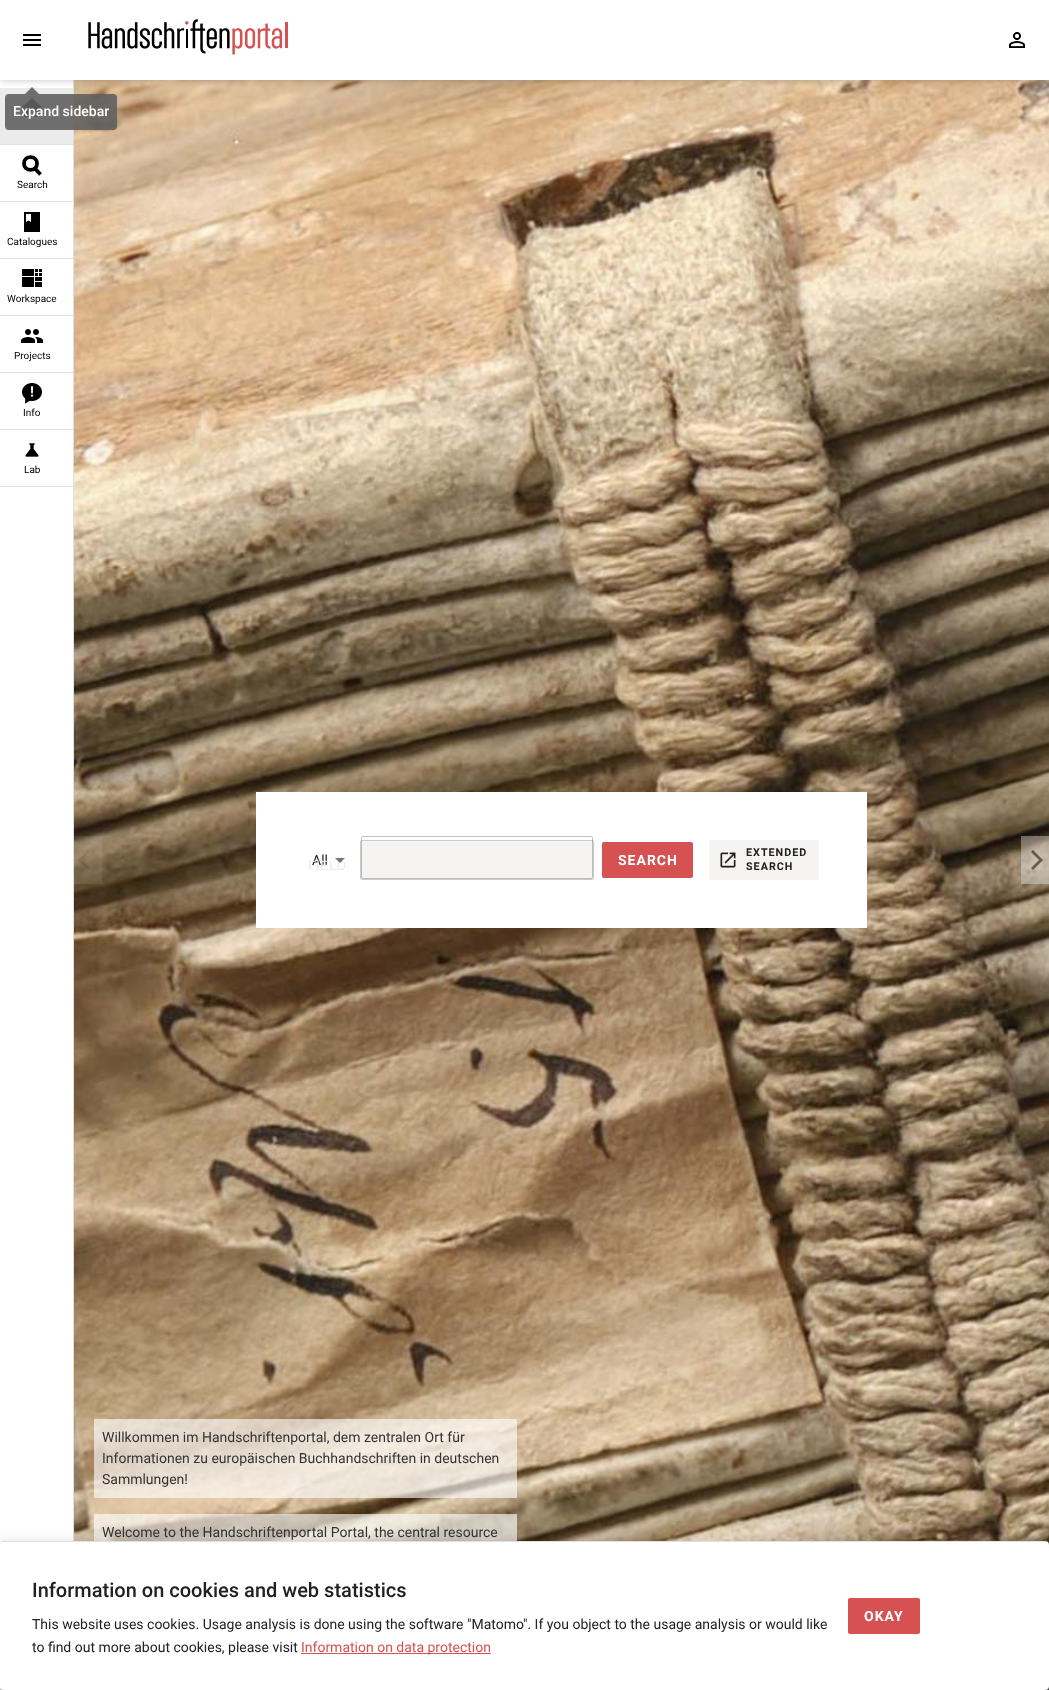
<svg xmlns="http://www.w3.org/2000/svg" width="1049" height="1690">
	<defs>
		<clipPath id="clip1"><rect x="25" y="84" width="14" height="10" /></clipPath>
		<clipPath id="clip2"><rect x="308" y="858" width="40" height="15" /></clipPath>
	</defs>
	<rect width="100%" height="100%" fill="#4F4D4A" />
	<rect x="0" y="80" width="73" height="1609" fill="#FFFFFF" />
	<rect x="73" y="80" width="1" height="1461" fill="#E0E0E0" />
	<rect x="0" y="88" width="73" height="56" fill="#EBEBEB" />
	<image x="22" y="98" width="20" height="19" href="assets/img4.png" />
	<image x="74" y="80" width="975" height="1465" href="assets/img11.png" />
	<rect x="5" y="94" width="112" height="36" rx="4" fill="#616161" fill-opacity="0.9" />
	<rect x="1" y="3" width="1047" height="78" fill="#000000" fill-opacity="0.2" filter="blur(3.5px)" />
	<g clip-path="url(#clip1)">
		<path d="M32 87L42 97L35 104L25 94Z" fill="#616161" fill-opacity="0.9" />
	</g>
	<text x="13" y="116" font-family="Roboto" font-size="14" font-weight="500" fill="#FFFFFF">Expand sidebar</text>
	<rect x="0" y="0" width="1049" height="80" fill="#FFFFFF" />
	<image x="23" y="34" width="18" height="12" href="assets/img1.png" />
	<image x="88" y="19" width="200" height="36" href="assets/img2.png" />
	<image x="1009" y="32" width="16" height="16" href="assets/img3.png" />
	<rect x="0" y="144" width="73" height="1" fill="#E0E0E0" />
	<path d="M37 163.5C37 172 24 172 24 163.5C24 155 37 155 37 163.5ZM35 168.5L40.5 174.5" fill="none" stroke="#000000" stroke-width="3.8" />
	<text x="17" y="188" font-family="Roboto" font-size="10" fill="#000000">Search</text>
	<rect x="0" y="201" width="73" height="1" fill="#E0E0E0" />
	<image x="24" y="212" width="16" height="20" href="assets/img5.png" />
	<text x="7" y="245" font-family="Roboto" font-size="10" fill="#000000">Catalogues</text>
	<rect x="0" y="258" width="73" height="1" fill="#E0E0E0" />
	<image x="22" y="269" width="20" height="18" href="assets/img6.png" />
	<text x="7" y="302" font-family="Roboto" font-size="10" fill="#000000">Workspace</text>
	<rect x="0" y="315" width="73" height="1" fill="#E0E0E0" />
	<image x="21" y="329" width="22" height="14" href="assets/img7.png" />
	<text x="14" y="359" font-family="Roboto" font-size="10" fill="#000000">Projects</text>
	<rect x="0" y="372" width="73" height="1" fill="#E0E0E0" />
	<image x="22" y="383" width="20" height="21" href="assets/img8.png" />
	<text x="23" y="416" font-family="Roboto" font-size="10" fill="#000000">Info</text>
	<rect x="0" y="429" width="73" height="1" fill="#E0E0E0" />
	<image x="25" y="443" width="14" height="14" href="assets/img9.png" />
	<text x="24" y="473" font-family="Roboto" font-size="10" fill="#000000">Lab</text>
	<rect x="0" y="486" width="73" height="1" fill="#E0E0E0" />
	<rect x="0" y="1689" width="4" height="1" fill="#E0E0E0" />
	<rect x="256" y="792" width="611" height="136" fill="#FFFFFF" />
	<text x="312" y="865" font-family="Roboto" font-size="14" fill="#212121">All</text>
	<g clip-path="url(#clip2)">
		<text x="308" y="870" font-family="Liberation Sans" font-size="13.5" fill="#ECECEC">FIELD-</text>
	</g>
	<path d="M335 858L340 863L345 858Z" fill="#000000" fill-opacity="0.54" />
	<rect x="360.5" y="840.5" width="233" height="39" rx="1.5" fill="#F6F4F2" stroke="#CCCCCC" />
	<rect x="361.5" y="836.5" width="231" height="42" rx="1.5" fill="none" stroke="#000000" stroke-opacity="0.23" />
	<rect x="602" y="842" width="91" height="36" rx="2" fill="#D65151" />
	<text x="618" y="865" font-family="Roboto" font-size="14" font-weight="700" letter-spacing="1" fill="#FFFFFF">SEARCH</text>
	<rect x="709" y="840" width="110" height="40" rx="2" fill="#F6F4F2" />
	<image x="720" y="852" width="16" height="16" href="assets/img10.png" />
	<g font-family="Roboto" font-size="10.75" font-weight="700" letter-spacing="1" fill="#212121">
		<text x="746" y="856">EXTENDED</text>
		<text x="746" y="870">SEARCH</text>
	</g>
	<rect x="74" y="836" width="28" height="48" fill="#FFFFFF" fill-opacity="0.07" />
	<path d="M89.5 852L88 850L78 860L88 870L89.5 868L81.5 860Z" fill="#000000" fill-opacity="0.1" />
	<rect x="1021" y="836" width="28" height="48" fill="#FFFFFF" fill-opacity="0.35" />
	<path d="M1031 852L1039 860L1031 868L1033 870L1043 860L1033 850Z" fill="#000000" fill-opacity="0.5" />
	<rect x="94" y="1419" width="423" height="79" fill="#FFFFFF" fill-opacity="0.63" />
	<g font-family="Roboto" font-size="14" fill="#343332">
		<text x="102" y="1442">Willkommen im Handschriftenportal, dem zentralen Ort für</text>
		<text x="102" y="1463">Informationen zu europäischen Buchhandschriften in deutschen</text>
		<text x="102" y="1484">Sammlungen!</text>
	</g>
	<rect x="94" y="1514" width="423" height="27" fill="#FFFFFF" fill-opacity="0.63" />
	<text x="102" y="1537" font-family="Roboto" font-size="14" fill="#343332">Welcome to the Handschriftenportal Portal, the central resource</text>
	<rect x="-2" y="1542" width="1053" height="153" rx="6" fill="#000000" fill-opacity="0.12" filter="blur(7px)" />
	<rect x="-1" y="1548" width="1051" height="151" rx="5" fill="#000000" fill-opacity="0.14" filter="blur(5px)" />
	<rect x="3" y="1549" width="1043" height="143" rx="1" fill="#000000" fill-opacity="0.2" filter="blur(2.5px)" />
	<rect x="0" y="1541" width="1049" height="149" rx="4" fill="#FFFFFF" />
	<rect x="2" y="1541" width="1045" height="1" fill="#000000" fill-opacity="0.12" />
	<text x="32" y="1597" font-family="Roboto" font-size="20" font-weight="500" fill="#212121">Information on cookies and web statistics</text>
	<g font-family="Roboto" font-size="14" fill="#212121">
		<text x="32" y="1629">This website uses cookies. Usage analysis is done using the software "Matomo". If you object to the usage analysis or would like</text>
		<text x="32" y="1652">to find out more about cookies, please visit</text>
	</g>
	<rect x="301" y="1653" width="190" height="1" fill="#D65151" />
	<text x="301" y="1652" font-family="Roboto" font-size="14" fill="#D65151">Information on data protection</text>
	<rect x="848" y="1598" width="72" height="36" rx="2" fill="#D65151" />
	<text x="864" y="1621" font-family="Roboto" font-size="14" font-weight="700" letter-spacing="1" fill="#FFFFFF">OKAY</text>
</svg>
